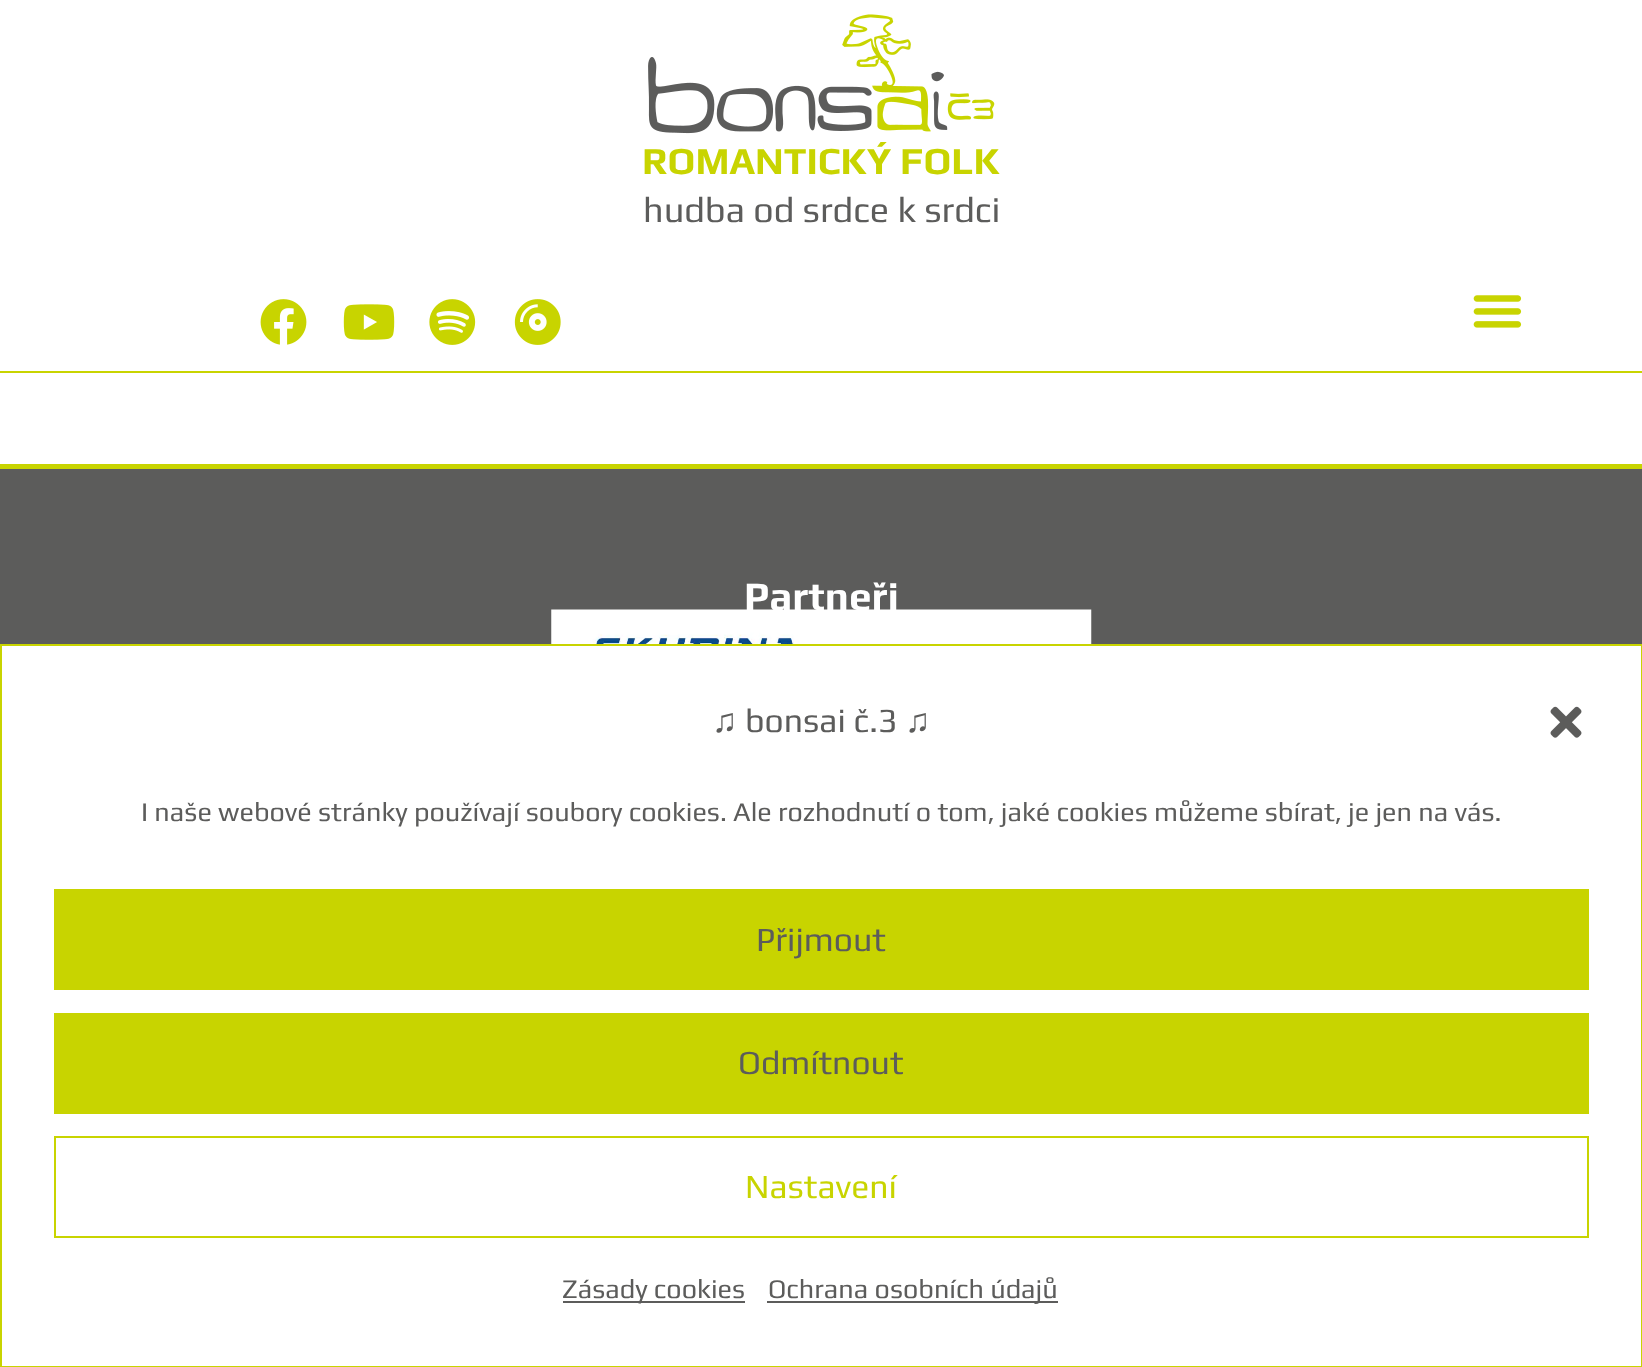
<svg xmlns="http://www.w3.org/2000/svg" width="1642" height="1367">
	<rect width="100%" height="100%" fill="#FFFFFF" />
	<rect x="0" y="371" width="1642" height="2" fill="#C8D400" />
	<image x="648" y="14" width="347" height="120" href="assets/img1.png" />
	<text x="642" y="174" font-family="Play" font-size="38.25" font-weight="700" fill="#C8D400">ROMANTICKÝ FOLK</text>
	<text x="643" y="222" font-family="Play" font-size="36" fill="#5C5C5B">hudba od srdce k srdci</text>
	<image x="260" y="299" width="47" height="46" href="assets/img2.png" />
	<image x="343" y="304" width="52" height="36" href="assets/img3.png" />
	<image x="429" y="299" width="47" height="46" href="assets/img4.png" />
	<image x="514" y="299" width="47" height="46" href="assets/img5.png" />
	<image x="1473" y="295" width="49" height="33" href="assets/img6.png" />
	<rect x="0" y="469" width="1642" height="175" fill="#5C5C5B" />
	<rect x="0" y="464" width="1642" height="5" fill="#C8D400" />
	<text x="744" y="610" font-family="Play" font-size="40.5" font-weight="700" fill="#FFFFFF">Partneři</text>
	<image x="551" y="609" width="541" height="35" href="assets/img7.png" />
	<rect x="1" y="645" width="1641" height="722" fill="none" stroke="#C8D400" stroke-width="2" />
	<text x="712" y="732" font-family="Liberation Sans" font-size="33.75" fill="#5C5C5B">♫</text>
	<text x="745" y="732" font-family="Play" font-size="33.75" fill="#5C5C5B">bonsai č.3</text>
	<text x="905" y="732" font-family="Liberation Sans" font-size="33.75" fill="#5C5C5B">♫</text>
	<image x="1550" y="706" width="32" height="32" href="assets/img8.png" />
	<text x="141" y="821" font-family="Play" font-size="27" fill="#5C5C5B">I naše webové stránky používají soubory cookies. Ale rozhodnutí o tom, jaké cookies můžeme sbírat, je jen na vás.</text>
	<rect x="54" y="889" width="1535" height="101" fill="#C8D400" />
	<text x="756" y="951" font-family="Play" font-size="33.75" fill="#5C5C5B">Přijmout</text>
	<rect x="54" y="1013" width="1535" height="101" fill="#C8D400" />
	<text x="738" y="1074" font-family="Play" font-size="33.75" fill="#5C5C5B">Odmítnout</text>
	<rect x="55" y="1137" width="1533" height="100" fill="none" stroke="#C8D400" stroke-width="2" />
	<text x="745" y="1198" font-family="Play" font-size="33.75" fill="#C8D400">Nastavení</text>
	<rect x="563" y="1301" width="182" height="2" fill="#5C5C5B" />
	<text x="562" y="1298" font-family="Play" font-size="27" fill="#5C5C5B">Zásady cookies</text>
	<rect x="767" y="1301" width="291" height="2" fill="#5C5C5B" />
	<text x="768" y="1298" font-family="Play" font-size="27" fill="#5C5C5B">Ochrana osobních údajů</text>
</svg>
